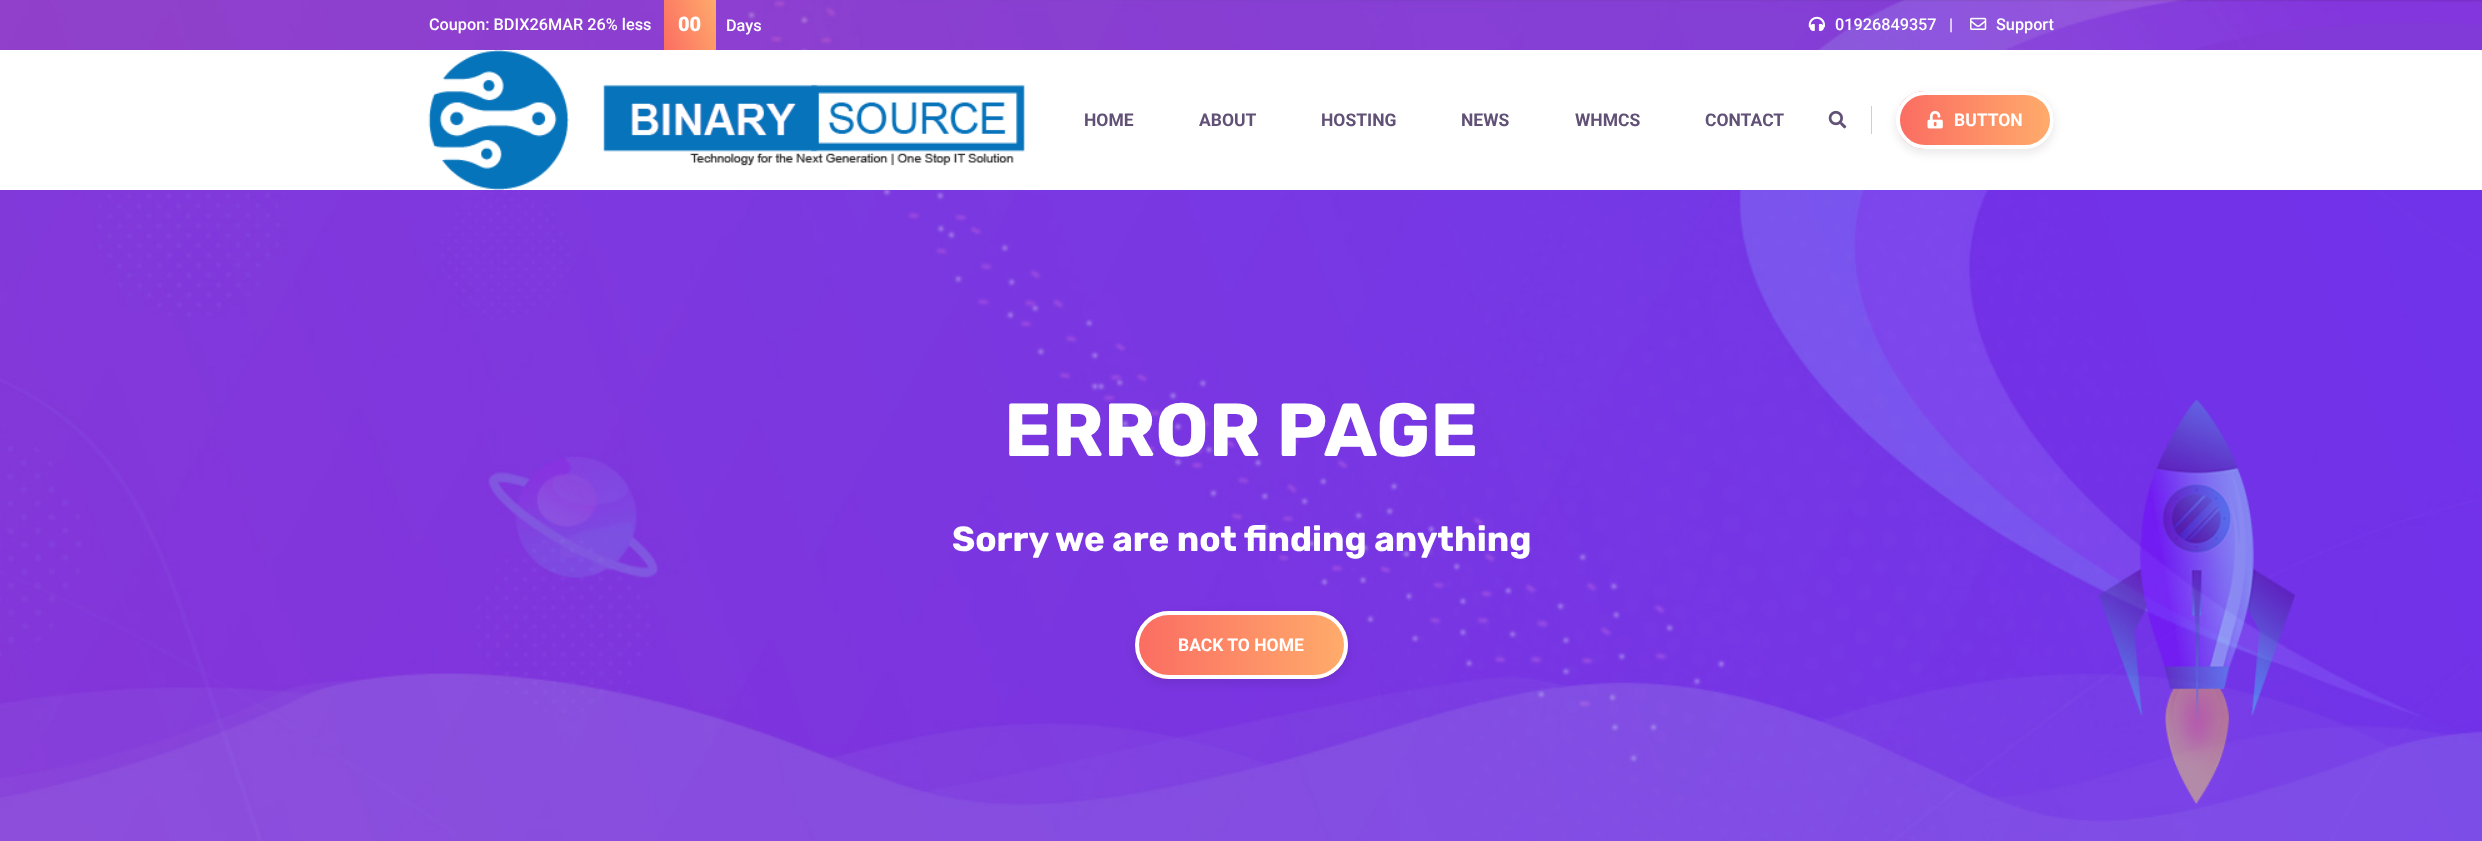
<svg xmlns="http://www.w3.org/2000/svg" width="2482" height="841">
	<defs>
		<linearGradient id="g1" gradientUnits="userSpaceOnUse" x1="659" y1="37" x2="721" y2="13"><stop offset="0" stop-color="#FB6D62" /><stop offset="1" stop-color="#FFAB6B" /></linearGradient>
		<clipPath id="clip1"><rect x="1896" y="91" width="158" height="58" rx="29" /></clipPath>
		<linearGradient id="g2" gradientUnits="userSpaceOnUse" x1="1900" y1="120" x2="2200" y2="120"><stop offset="0" stop-color="#FB6D62" /><stop offset="0.5" stop-color="#FFAB6B" /><stop offset="1" stop-color="#FB6D62" /></linearGradient>
		<clipPath id="clip2"><rect x="1135" y="611" width="213" height="68" rx="34" /></clipPath>
		<linearGradient id="g3" gradientUnits="userSpaceOnUse" x1="1139" y1="645" x2="1549" y2="645"><stop offset="0" stop-color="#FB6D62" /><stop offset="0.5" stop-color="#FFAB6B" /><stop offset="1" stop-color="#FB6D62" /></linearGradient>
	</defs>
	<rect width="100%" height="100%" fill="#FFFFFF" />
	<image x="0" y="0" width="2482" height="841" href="assets/img6.png" />
	<rect x="0" y="0" width="2482" height="50" fill="#FB7063" fill-opacity="0.13" />
	<text x="429" y="30" font-family="Roboto" font-size="16.25" font-weight="500" fill="#FFFFFF">Coupon: BDIX26MAR 26% less</text>
	<rect x="664" y="0" width="52" height="50" fill="url(#g1)" />
	<text x="678" y="31" font-family="Roboto" font-size="20" font-weight="900" fill="#FFFFFF">00</text>
	<text x="726" y="31" font-family="Roboto" font-size="16.25" font-weight="500" fill="#FFFFFF">Days</text>
	<image x="1808" y="16" width="17" height="15" href="assets/img1.png" />
	<g font-family="Roboto" font-size="16.25" font-weight="500" fill="#FFFFFF">
		<text x="1835" y="30">01926849357</text>
		<text x="1949" y="30">|</text>
	</g>
	<image x="1970" y="17" width="17" height="13" href="assets/img2.png" />
	<text x="1996" y="30" font-family="Roboto" font-size="16.25" font-weight="500" fill="#FFFFFF">Support</text>
	<rect x="0" y="50" width="2482" height="140" fill="#FFFFFF" />
	<image x="428" y="50" width="597" height="140" href="assets/img3.png" />
	<g font-family="Roboto" font-size="17.5" font-weight="700" fill="#615176">
		<text x="1084" y="126">HOME</text>
		<text x="1199" y="126">ABOUT</text>
		<text x="1321" y="126">HOSTING</text>
		<text x="1461" y="126">NEWS</text>
		<text x="1575" y="126">WHMCS</text>
		<text x="1705" y="126">CONTACT</text>
	</g>
	<image x="1828" y="110" width="19" height="19" href="assets/img4.png" />
	<rect x="1871" y="106" width="1" height="28" fill="#E0C0EC" />
	<rect x="1895" y="94" width="160" height="60" rx="30" fill="#000000" fill-opacity="0.08" filter="blur(4.5px)" />
	<g clip-path="url(#clip1)">
		<path d="M1900 91H2025C2041 91 2054 104 2054 120C2054 136 2041 149 2025 149H1900Z" fill="url(#g2)" />
	</g>
	<rect x="1898" y="93" width="154" height="54" rx="27" fill="none" stroke="#FFFFFF" stroke-width="4" />
	<image x="1927" y="110" width="16" height="19" href="assets/img5.png" />
	<text x="1954" y="126" font-family="Roboto" font-size="17.5" font-weight="700" fill="#FFFFFF">BUTTON</text>
	<text x="1004" y="456" font-family="Rubik" font-size="75" font-weight="700" fill="#FFFFFF">ERROR PAGE</text>
	<text x="952" y="551" font-family="Rubik" font-size="35" font-weight="700" fill="#FFFFFF">Sorry we are not finding anything</text>
	<rect x="1134" y="614" width="215" height="70" rx="35" fill="#000000" fill-opacity="0.08" filter="blur(4.5px)" />
	<g clip-path="url(#clip2)">
		<path d="M1139 611H1314C1333 611 1348 626 1348 645C1348 664 1333 679 1314 679H1139Z" fill="url(#g3)" />
	</g>
	<rect x="1137" y="613" width="209" height="64" rx="32" fill="none" stroke="#FFFFFF" stroke-width="4" />
	<text x="1178" y="651" font-family="Roboto" font-size="17.5" font-weight="700" fill="#FFFFFF">BACK TO HOME</text>
	<image x="2098" y="400" width="197" height="404" href="assets/img7.png" />
</svg>
